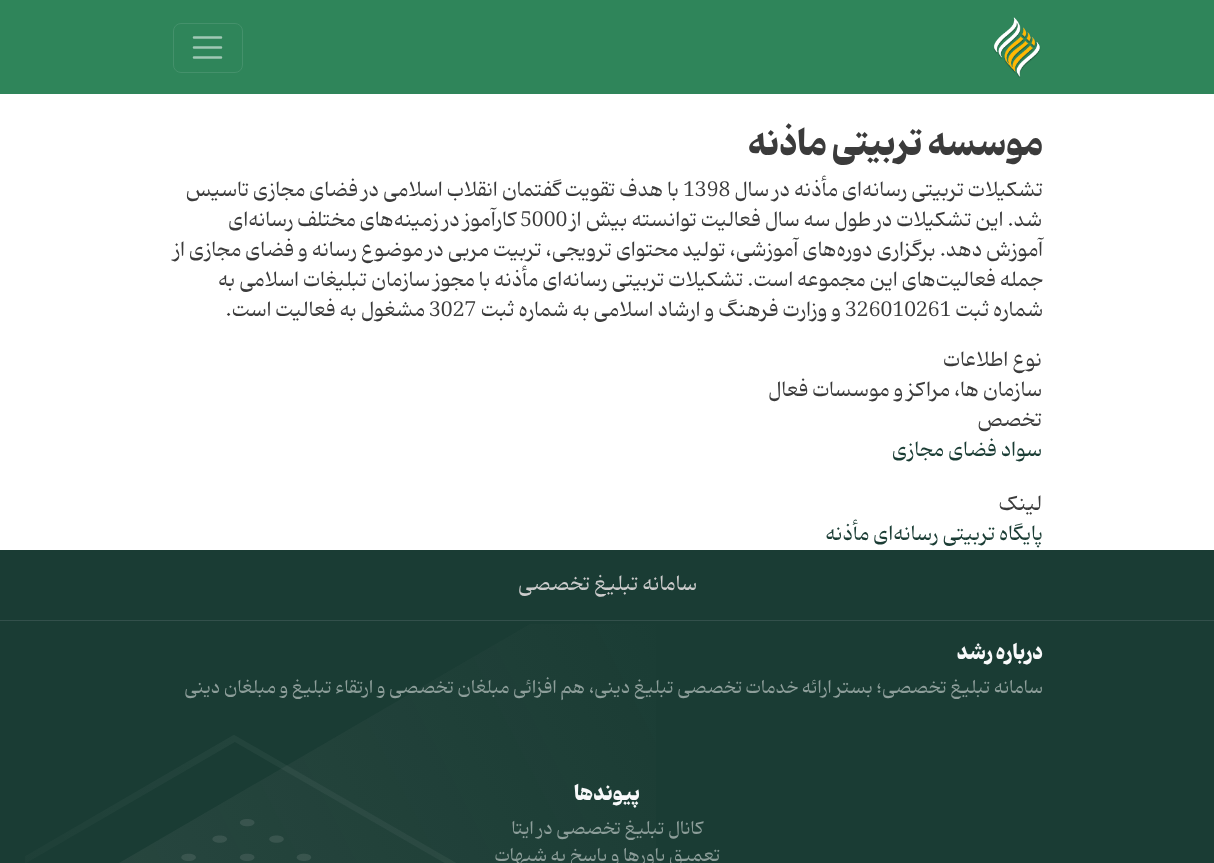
<svg xmlns="http://www.w3.org/2000/svg" width="1214" height="863">
	<rect width="100%" height="100%" fill="#2F855A" />
	<image x="993" y="17" width="48" height="61" href="assets/img1.png" />
	<rect x="173.5" y="23.5" width="69" height="49" rx="7.5" fill="none" stroke="#44916B" />
	<path d="M194 37.5H221M194 47.5H221M194 57.5H221" fill="none" stroke="#A1C8B5" stroke-width="2.5" stroke-linecap="round" />
	<rect x="0" y="94" width="1214" height="456" fill="#FFFFFF" />
	<text x="1043" y="155" font-family="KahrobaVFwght" font-size="34" font-weight="700" direction="rtl" fill="#3B3B3B">موسسه تربیتی ماذنه</text>
	<text x="1043" y="196" font-family="KahrobaVFwght" font-size="20" direction="rtl" fill="#3B3B3B">تشکیلات تربیتی رسانه‌ای مأذنه در سال</text>
	<text x="683" y="196" font-family="KahrobaVFwght" font-size="20" fill="#3B3B3B">1398</text>
	<g font-family="KahrobaVFwght" font-size="20" direction="rtl" fill="#3B3B3B">
		<text x="679" y="196">با هدف تقویت گفتمان انقلاب اسلامی در فضای مجازی تاسیس</text>
		<text x="1042" y="226">شد. این تشکیلات در طول سه سال فعالیت توانسته بیش از</text>
	</g>
	<text x="520" y="226" font-family="KahrobaVFwght" font-size="20" fill="#3B3B3B">5000</text>
	<g font-family="KahrobaVFwght" font-size="20" direction="rtl" fill="#3B3B3B">
		<text x="516" y="226">کارآموز در زمینه‌های مختلف رسانه‌ای</text>
		<text x="1043" y="256">آموزش دهد. برگزاری دوره‌های آموزشی، تولید محتوای ترویجی، تربیت مربی در موضوع رسانه و فضای مجازی از</text>
		<text x="1043" y="286">جمله فعالیت‌های این مجموعه است. تشکیلات تربیتی رسانه‌ای مأذنه با مجوز سازمان تبلیغات اسلامی به</text>
		<text x="1043" y="316">شماره ثبت</text>
	</g>
	<text x="845" y="316" font-family="KahrobaVFwght" font-size="20" fill="#3B3B3B">326010261</text>
	<text x="841" y="316" font-family="KahrobaVFwght" font-size="20" direction="rtl" fill="#3B3B3B">و وزارت فرهنگ و ارشاد اسلامی به شماره ثبت</text>
	<text x="429" y="316" font-family="KahrobaVFwght" font-size="20" fill="#3B3B3B">3027</text>
	<g font-family="KahrobaVFwght" font-size="20" direction="rtl" fill="#3B3B3B">
		<text x="425" y="316">مشغول به فعالیت است.</text>
		<text x="1042" y="366">نوع اطلاعات</text>
		<text x="1042" y="396">سازمان ها، مراکز و موسسات فعال</text>
		<text x="1042" y="426">تخصص</text>
	</g>
	<text x="1042" y="456" font-family="KahrobaVFwght" font-size="20" direction="rtl" fill="#1A3C34">سواد فضای مجازی</text>
	<text x="1042" y="510" font-family="KahrobaVFwght" font-size="20" direction="rtl" fill="#3B3B3B">لینک</text>
	<text x="1043" y="540" font-family="KahrobaVFwght" font-size="20" direction="rtl" fill="#1A3C34">پایگاه تربیتی رسانه‌ای مأذنه</text>
	<rect x="0" y="550" width="1214" height="70" fill="#1A3C34" />
	<rect x="0" y="620" width="1214" height="1" fill="#33504B" />
	<text x="697" y="590" font-family="KahrobaVFwght" font-size="20" direction="rtl" fill="#CCCCCC">سامانه تبلیغ تخصصی</text>
	<rect x="0" y="621" width="1214" height="242" fill="#1A3C34" />
	<image x="25" y="624" width="631" height="239" href="assets/img2.png" />
	<text x="1043" y="659" font-family="KahrobaVFwght" font-size="20" font-weight="700" direction="rtl" fill="#F8F9FA">درباره رشد</text>
	<text x="1043" y="693" font-family="KahrobaVFwght" font-size="18" direction="rtl" fill="#8D9E9A">سامانه تبلیغ تخصصی؛ بستر ارائه خدمات تخصصی تبلیغ دینی، هم افزائی مبلغان تخصصی و ارتقاء تبلیغ و مبلغان دینی</text>
	<text x="640" y="800" font-family="KahrobaVFwght" font-size="20" font-weight="700" direction="rtl" fill="#F8F9FA">پیوندها</text>
	<g font-family="KahrobaVFwght" font-size="18" direction="rtl" fill="#8D9E9A">
		<text x="703" y="834">کانال تبلیغ تخصصی در ایتا</text>
		<text x="720" y="861">تعمیق باورها و پاسخ به شبهات</text>
	</g>
</svg>
